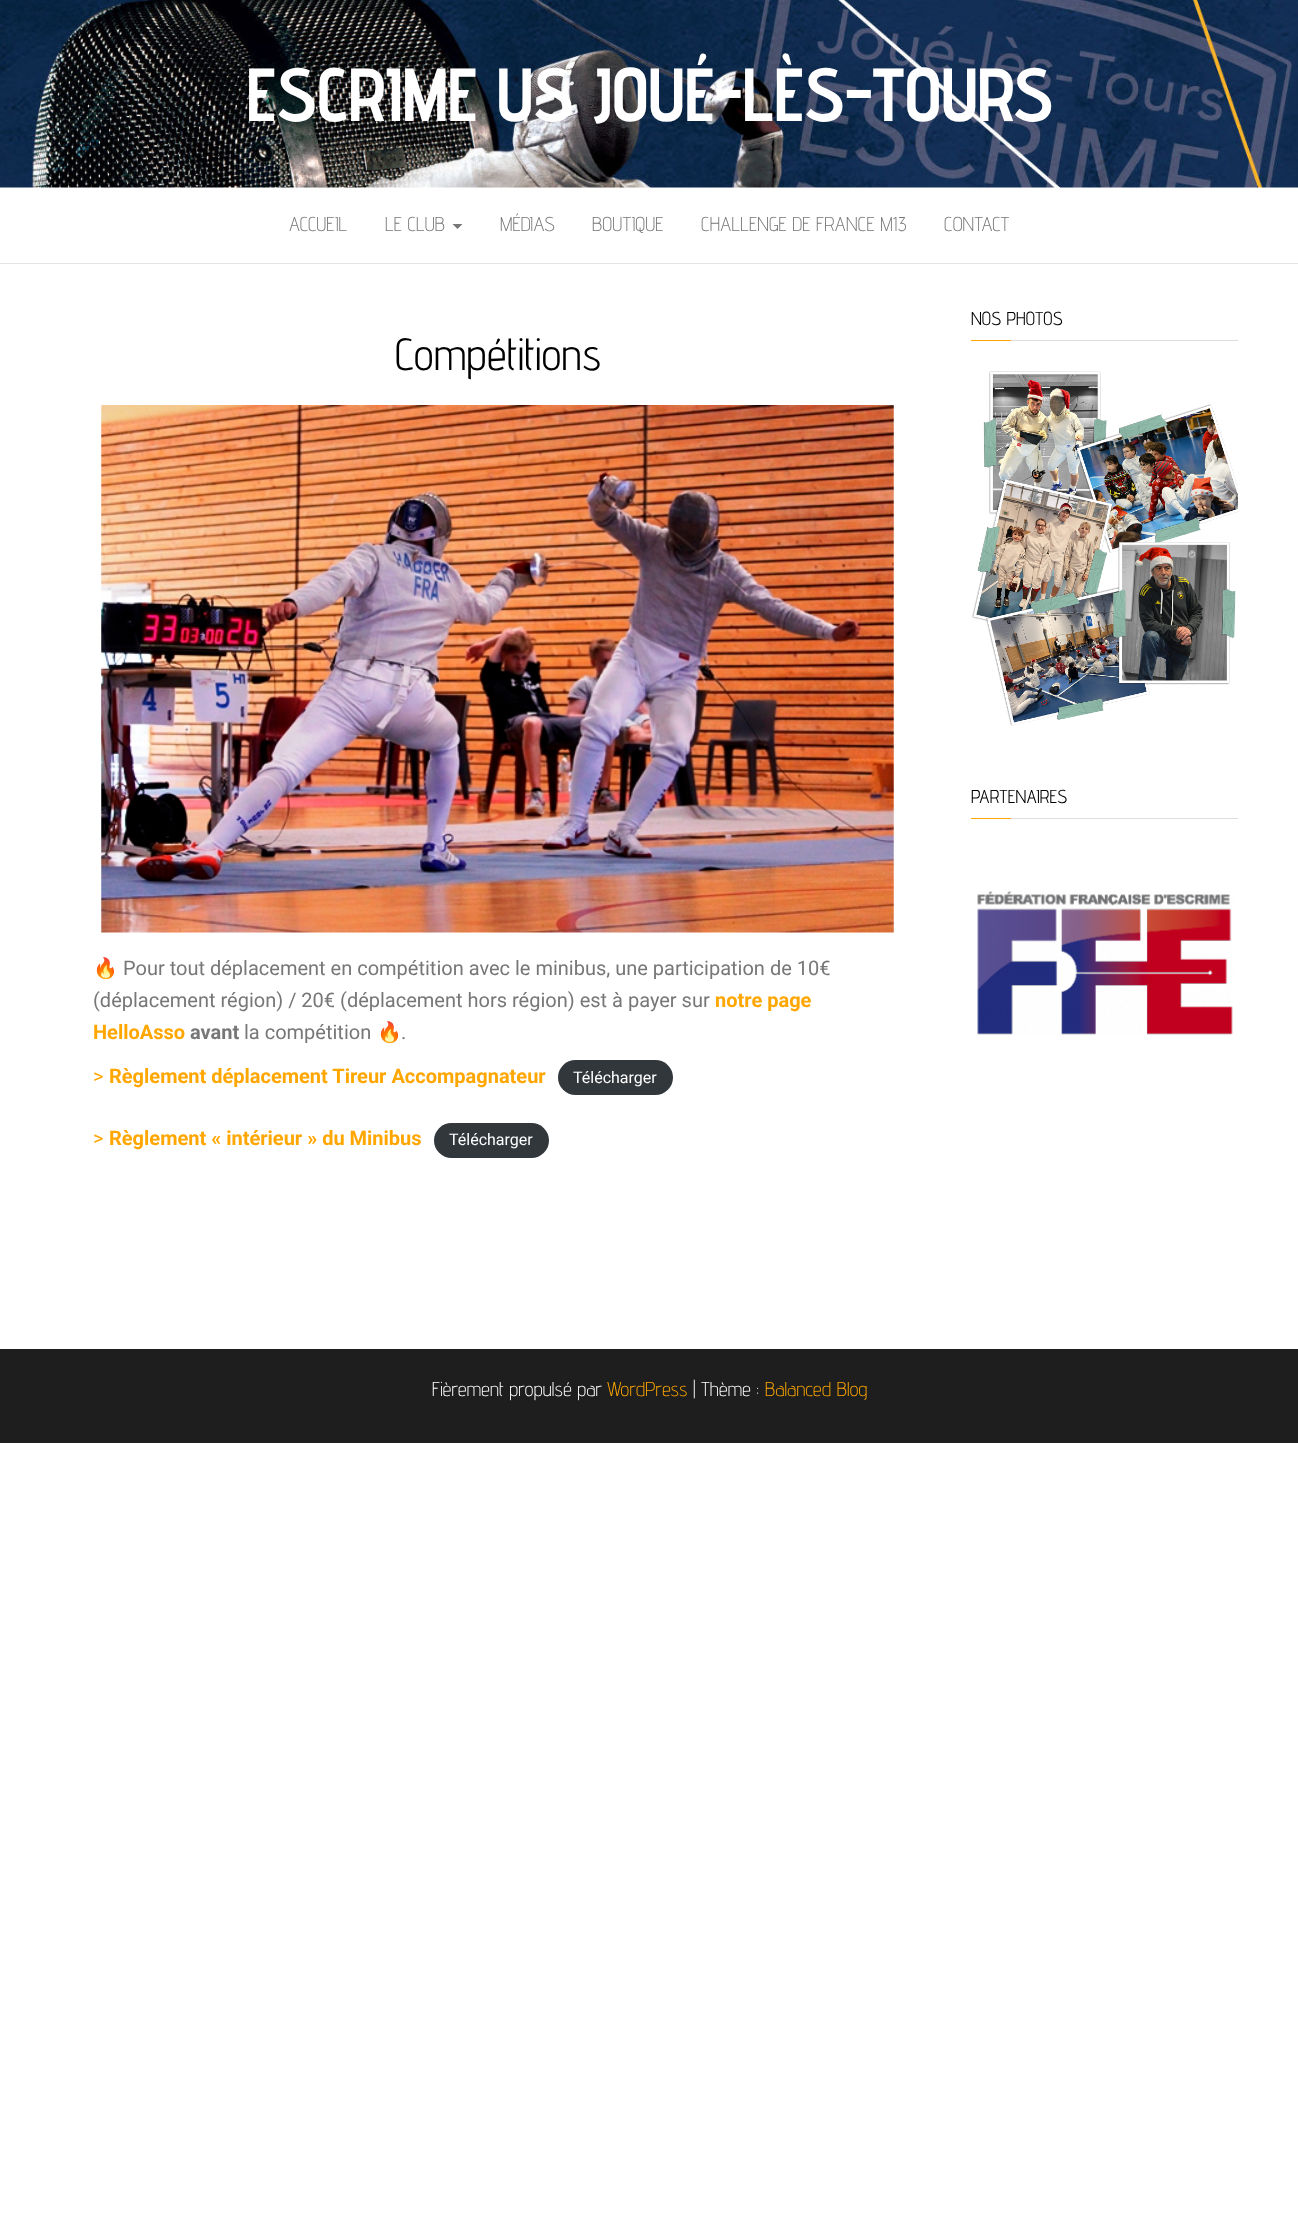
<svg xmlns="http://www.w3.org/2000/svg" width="1298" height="2228">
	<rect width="100%" height="100%" fill="#FFFFFF" />
	<image x="0" y="0" width="1298" height="188" href="assets/img1.png" />
	<text x="246" y="121" font-family="Advent Pro" font-size="75" font-weight="700" letter-spacing="-1.5" fill="#FFFFFF">ESCRIME US JOUÉ-LÈS-TOURS</text>
	<rect x="0" y="263" width="1298" height="1" fill="#E3E3E3" />
	<g font-family="Advent Pro" font-size="20" font-weight="300" fill="#777777">
		<text x="289" y="231">ACCUEIL</text>
		<text x="385" y="231">LE CLUB</text>
	</g>
	<path d="M452.5 224H462.5L457.5 229Z" fill="#777777" />
	<g font-family="Advent Pro" font-size="20" font-weight="300" fill="#777777">
		<text x="500" y="231">MÉDIAS</text>
		<text x="592" y="231">BOUTIQUE</text>
		<text x="701" y="231">CHALLENGE DE FRANCE M13</text>
		<text x="944" y="231">CONTACT</text>
	</g>
	<text x="395" y="370" font-family="Advent Pro" font-size="45" fill="#000000">Compétitions</text>
	<image x="101" y="405" width="793" height="528" href="assets/img2.png" />
	<text x="93" y="975" font-family="Noto Color Emoji" font-size="20" fill="#777777">🔥</text>
	<g font-family="Roboto" font-size="20" fill="#777777">
		<text x="123" y="975">Pour tout déplacement en compétition avec le minibus, une participation de 10€</text>
		<text x="93" y="1007">(déplacement région) / 20€ (déplacement hors région) est à payer sur</text>
	</g>
	<g font-family="Roboto" font-size="20" font-weight="700" fill="#FFA700">
		<text x="715" y="1007">notre page</text>
		<text x="93" y="1039">HelloAsso</text>
	</g>
	<text x="190" y="1039" font-family="Roboto" font-size="20" font-weight="700" fill="#777777">avant</text>
	<text x="244" y="1039" font-family="Roboto" font-size="20" fill="#777777">la compétition</text>
	<text x="377" y="1039" font-family="Noto Color Emoji" font-size="20" fill="#777777">🔥</text>
	<text x="401" y="1039" font-family="Roboto" font-size="20" fill="#777777">.</text>
	<text x="93" y="1083" font-family="Roboto" font-size="20" fill="#FFA700">&gt;</text>
	<text x="109" y="1083" font-family="Roboto" font-size="20" font-weight="700" fill="#FFA700">Règlement déplacement Tireur Accompagnateur</text>
	<rect x="558" y="1060" width="115" height="35" rx="17.5" fill="#32373C" />
	<text x="573" y="1083" font-family="Roboto" font-size="16" fill="#FFFFFF">Télécharger</text>
	<text x="93" y="1145" font-family="Roboto" font-size="20" fill="#FFA700">&gt;</text>
	<text x="109" y="1145" font-family="Roboto" font-size="20" font-weight="700" fill="#FFA700">Règlement « intérieur » du Minibus</text>
	<rect x="434" y="1123" width="115" height="35" rx="17.5" fill="#32373C" />
	<text x="449" y="1145" font-family="Roboto" font-size="16" fill="#FFFFFF">Télécharger</text>
	<text x="971" y="325" font-family="Advent Pro" font-size="18.75" fill="#000000">NOS PHOTOS</text>
	<rect x="971" y="340" width="40" height="1" fill="#FFA700" />
	<rect x="1011" y="340" width="227" height="1" fill="#DDDDDD" />
	<image x="972" y="371" width="266" height="355" href="assets/img3.png" />
	<text x="971" y="803" font-family="Advent Pro" font-size="18.75" fill="#000000">PARTENAIRES</text>
	<rect x="971" y="818" width="40" height="1" fill="#FFA700" />
	<rect x="1011" y="818" width="227" height="1" fill="#DDDDDD" />
	<image x="977" y="891" width="256" height="144" href="assets/img4.png" />
	<rect x="0" y="1349" width="1298" height="94" fill="#1E1E1E" />
	<text x="432" y="1396" font-family="Advent Pro" font-size="20" font-weight="300" fill="#FFFFFF">Fièrement propulsé par</text>
	<text x="607" y="1396" font-family="Advent Pro" font-size="20" font-weight="300" fill="#FFA700">WordPress</text>
	<text x="693" y="1396" font-family="Advent Pro" font-size="20" font-weight="300" fill="#FFFFFF">| Thème :</text>
	<text x="765" y="1396" font-family="Advent Pro" font-size="20" font-weight="300" fill="#FFA700">Balanced Blog</text>
</svg>
